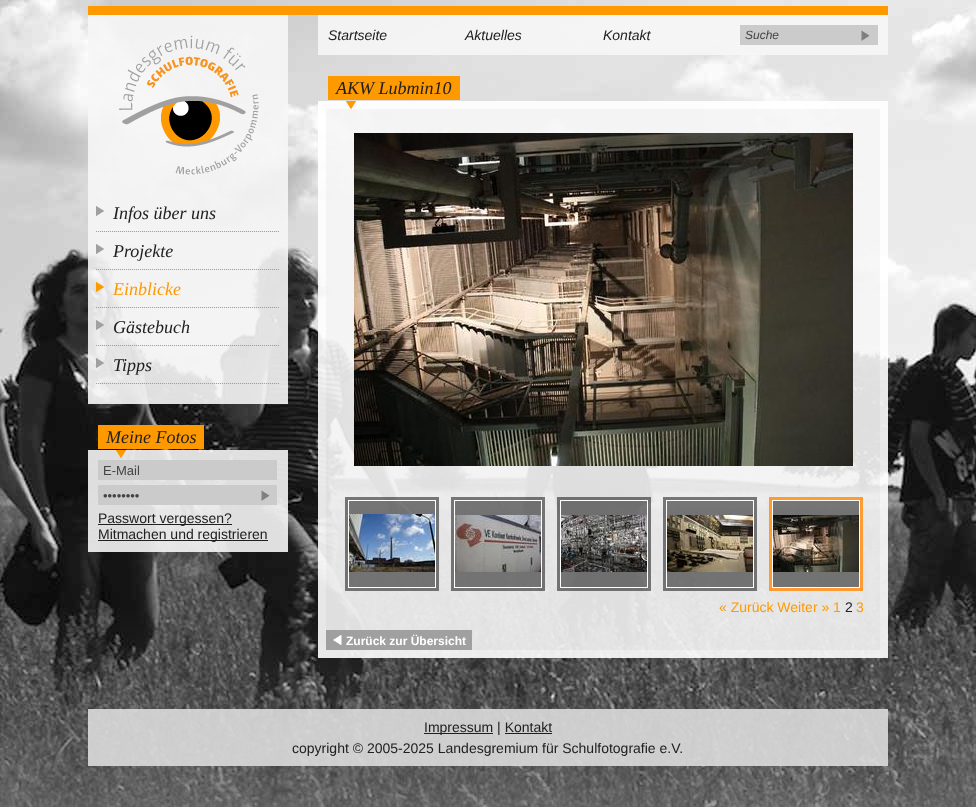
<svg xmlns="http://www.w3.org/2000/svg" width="976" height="807">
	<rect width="100%" height="100%" fill="#FFFFFF" />
	<image x="0" y="0" width="976" height="807" href="assets/img1.png" />
	<rect x="88" y="6" width="800" height="9" fill="#FF9900" />
	<rect x="88" y="15" width="200" height="389" fill="#F6F6F6" fill-opacity="0.9" />
	<image x="119" y="35" width="140" height="140" href="assets/img2.png" />
	<image x="96" y="206" width="8" height="10" href="assets/img3.png" />
	<image x="96" y="231" width="183" height="1" href="assets/img4.png" />
	<text x="113" y="219" font-family="Liberation Serif" font-size="18" font-style="italic" fill="#202020">Infos über uns</text>
	<image x="96" y="244" width="8" height="10" href="assets/img5.png" />
	<image x="96" y="269" width="183" height="1" href="assets/img6.png" />
	<text x="113" y="257" font-family="Liberation Serif" font-size="18" font-style="italic" fill="#202020">Projekte</text>
	<image x="96" y="282" width="8" height="10" href="assets/img7.png" />
	<image x="96" y="307" width="183" height="1" href="assets/img8.png" />
	<text x="113" y="295" font-family="Liberation Serif" font-size="18" font-style="italic" fill="#FF9900">Einblicke</text>
	<image x="96" y="320" width="8" height="10" href="assets/img9.png" />
	<image x="96" y="345" width="183" height="1" href="assets/img10.png" />
	<text x="113" y="333" font-family="Liberation Serif" font-size="18" font-style="italic" fill="#202020">Gästebuch</text>
	<image x="96" y="358" width="8" height="10" href="assets/img11.png" />
	<image x="96" y="383" width="183" height="1" href="assets/img12.png" />
	<text x="113" y="371" font-family="Liberation Serif" font-size="18" font-style="italic" fill="#202020">Tipps</text>
	<rect x="98" y="425" width="106" height="24" fill="#FF9900" />
	<text x="106" y="443" font-family="Liberation Serif" font-size="18" font-style="italic" fill="#202020">Meine Fotos</text>
	<image x="88" y="450" width="200" height="102" href="assets/img13.png" />
	<rect x="98" y="460" width="179" height="20" fill="#CBCBCB" />
	<text x="103" y="475" font-family="Liberation Sans" font-size="13" fill="#444444">E-Mail</text>
	<rect x="98" y="485" width="179" height="20" fill="#CBCBCB" />
	<text x="103" y="500" font-family="Liberation Sans" font-size="13" fill="#444444">••••••••</text>
	<image x="261" y="490" width="9" height="11" href="assets/img14.png" />
	<rect x="98" y="524" width="134" height="1" fill="#202020" />
	<text x="98" y="523" font-family="Liberation Sans" font-size="14" fill="#202020">Passwort vergessen?</text>
	<rect x="98" y="540" width="170" height="1" fill="#202020" />
	<text x="98" y="539" font-family="Liberation Sans" font-size="14" fill="#202020">Mitmachen und registrieren</text>
	<rect x="318" y="15" width="570" height="40" fill="#F6F6F6" fill-opacity="0.9" />
	<g font-family="Liberation Sans" font-size="14" font-style="italic" fill="#202020">
		<text x="328" y="40">Startseite</text>
		<text x="465" y="40">Aktuelles</text>
		<text x="603" y="40">Kontakt</text>
	</g>
	<rect x="740" y="25" width="138" height="20" fill="#CBCBCB" />
	<text x="745" y="39" font-family="Liberation Sans" font-size="12" font-style="italic" fill="#444444">Suche</text>
	<image x="861" y="30" width="9" height="11" href="assets/img14.png" />
	<rect x="328" y="76" width="132" height="24" fill="#FF9900" />
	<text x="336" y="94" font-family="Liberation Serif" font-size="18" font-style="italic" fill="#202020">AKW Lubmin10</text>
	<image x="318" y="101" width="570" height="8" href="assets/img15.png" />
	<rect x="318" y="650" width="570" height="8" fill="#FFFFFF" fill-opacity="0.9" />
	<image x="318" y="109" width="570" height="541" href="assets/img16.png" />
	<image x="354" y="133" width="499" height="333" href="assets/img17.png" />
	<rect x="345" y="497" width="94" height="94" fill="#000000" fill-opacity="0.5" />
	<rect x="348.5" y="500.5" width="87" height="87" fill="none" stroke="#FFFFFF" />
	<image x="349" y="514" width="86" height="58" href="assets/img18.png" />
	<rect x="451" y="497" width="94" height="94" fill="#000000" fill-opacity="0.5" />
	<rect x="454.5" y="500.5" width="87" height="87" fill="none" stroke="#FFFFFF" />
	<image x="455" y="515" width="86" height="57" href="assets/img19.png" />
	<rect x="557" y="497" width="94" height="94" fill="#000000" fill-opacity="0.5" />
	<rect x="560.5" y="500.5" width="87" height="87" fill="none" stroke="#FFFFFF" />
	<image x="561" y="515" width="86" height="57" href="assets/img20.png" />
	<rect x="663" y="497" width="94" height="94" fill="#000000" fill-opacity="0.5" />
	<rect x="666.5" y="500.5" width="87" height="87" fill="none" stroke="#FFFFFF" />
	<image x="667" y="515" width="86" height="57" href="assets/img21.png" />
	<rect x="773" y="501" width="86" height="86" fill="#000000" fill-opacity="0.5" />
	<rect x="770.5" y="498.5" width="91" height="91" fill="none" stroke="#FE9B32" stroke-width="3" />
	<rect x="772.5" y="500.5" width="87" height="87" fill="none" stroke="#FFFFFF" />
	<image x="773" y="515" width="86" height="57" href="assets/img22.png" />
	<text x="719" y="612" font-family="Liberation Sans" font-size="14" fill="#FF9900">« Zurück Weiter » 1</text>
	<text x="845" y="612" font-family="Liberation Sans" font-size="14" fill="#202020">2</text>
	<text x="856" y="612" font-family="Liberation Sans" font-size="14" fill="#FF9900">3</text>
	<image x="326" y="630" width="146" height="20" href="assets/img23.png" />
	<text x="346" y="645" font-family="Liberation Sans" font-size="12" font-weight="700" fill="#FFFFFF">Zurück zur Übersicht</text>
	<rect x="88" y="709" width="800" height="57" fill="#DCDCDC" fill-opacity="0.9" />
	<rect x="424" y="733" width="69" height="1" fill="#202020" />
	<text x="424" y="732" font-family="Liberation Sans" font-size="14" fill="#202020">Impressum | Kontakt</text>
	<rect x="505" y="733" width="47" height="1" fill="#202020" />
	<text x="292" y="753" font-family="Liberation Sans" font-size="14" fill="#202020">copyright © 2005-2025 Landesgremium für Schulfotografie e.V.</text>
</svg>
